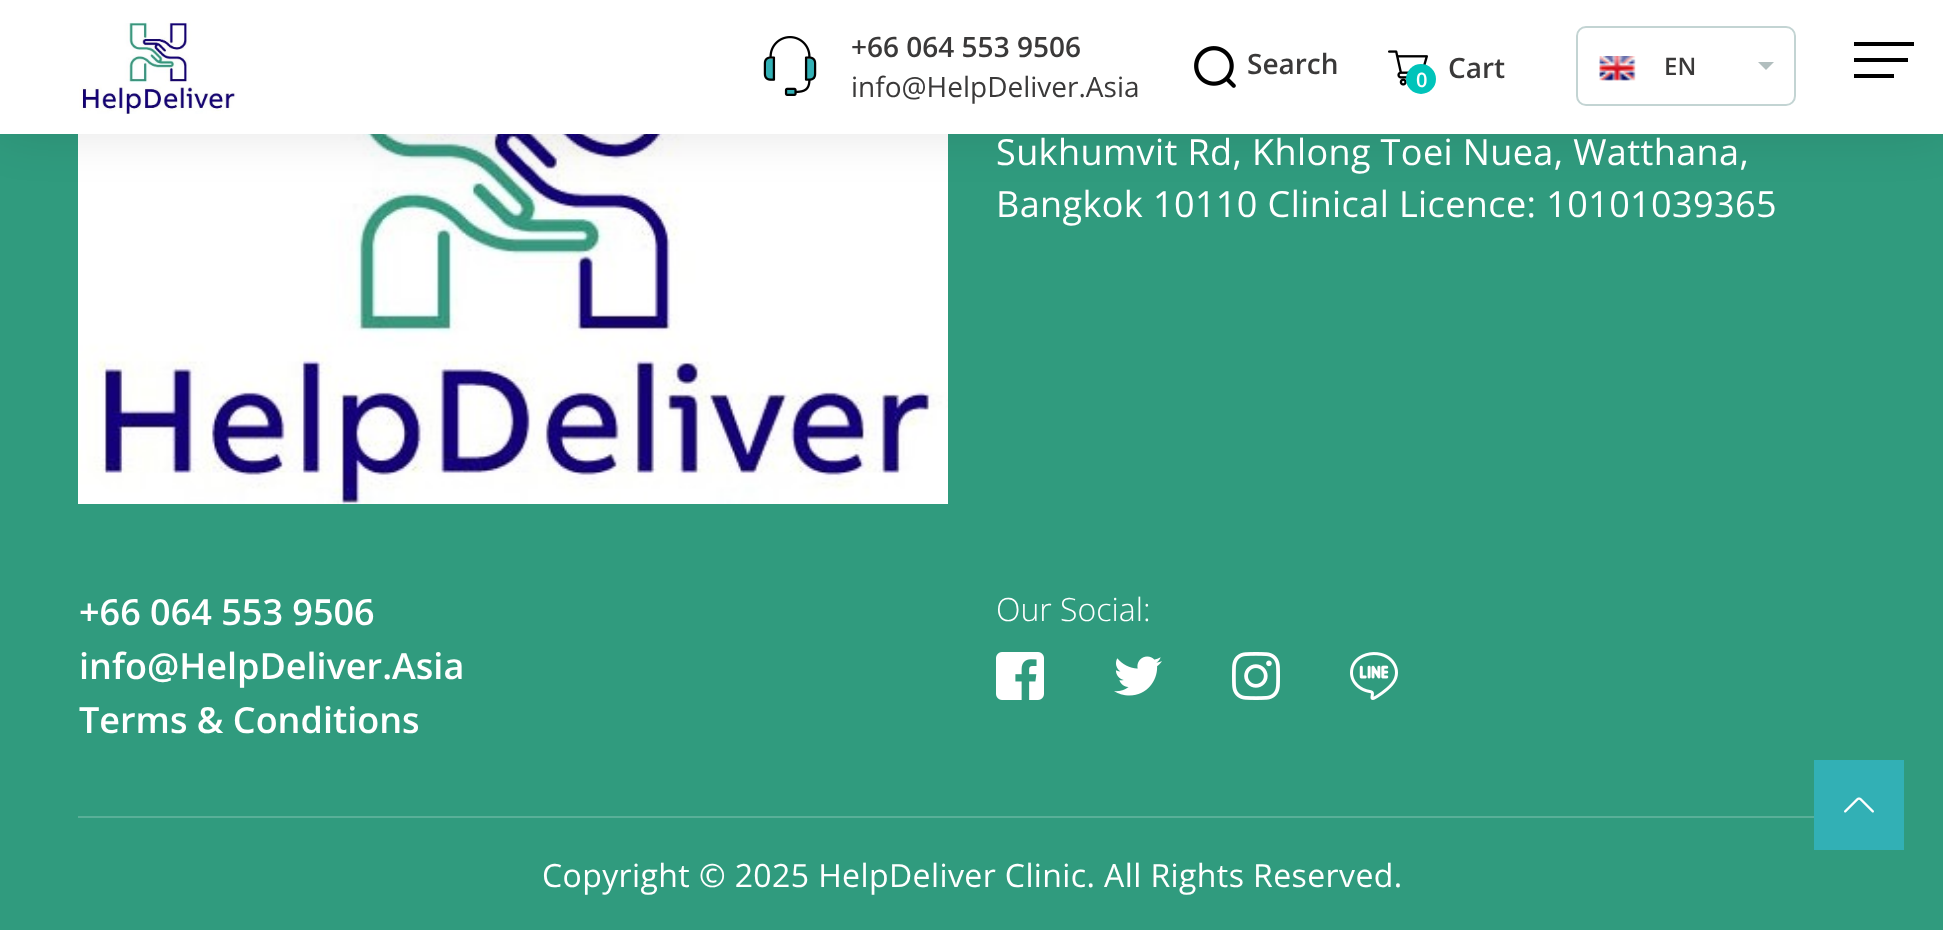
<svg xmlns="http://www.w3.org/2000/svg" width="1943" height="930">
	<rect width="100%" height="100%" fill="#309B7E" />
	<image x="78" y="134" width="870" height="370" href="assets/img6.png" />
	<rect x="0" y="0" width="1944" height="134" fill="#000000" fill-opacity="0.1" filter="blur(25px)" />
	<rect x="0" y="0" width="1943" height="134" fill="#FFFFFF" />
	<image x="79" y="20" width="158" height="94" href="assets/img1.png" />
	<image x="763" y="36" width="54" height="60" href="assets/img2.png" />
	<text x="851" y="57" font-family="Open Sans" font-size="28" font-weight="600" fill="#3A3939">+66 064 553 9506</text>
	<text x="851" y="97" font-family="Open Sans" font-size="28" fill="#3A3939">info@HelpDeliver.Asia</text>
	<image x="1194" y="46" width="42" height="42" href="assets/img3.png" />
	<text x="1247" y="74" font-family="Open Sans" font-size="28" font-weight="600" fill="#3A3939">Search</text>
	<image x="1388" y="50" width="40" height="36" href="assets/img4.png" />
	<circle cx="1421" cy="79" r="15" fill="#00C4BA" />
	<text x="1416" y="87" font-family="Open Sans" font-size="20" font-weight="600" fill="#FFFFFF">0</text>
	<text x="1448" y="78" font-family="Open Sans" font-size="28" font-weight="600" fill="#3A3939">Cart</text>
	<rect x="1577" y="27" width="218" height="78" rx="9" fill="none" stroke="#C3D4D3" stroke-width="2" />
	<image x="1599" y="56" width="37" height="25" href="assets/img5.png" />
	<text x="1664" y="75" font-family="Open Sans" font-size="24" font-weight="600" fill="#3A3939">EN</text>
	<path d="M1758 62H1774L1766 70Z" fill="#B1BEBE" />
	<rect x="1854" y="42" width="60" height="4" fill="#000000" />
	<rect x="1854" y="58" width="54" height="4" fill="#000000" />
	<rect x="1854" y="74" width="40" height="4" fill="#000000" />
	<g font-family="Open Sans" font-size="36" letter-spacing="0.4" fill="#FFFFFF">
		<text x="996" y="165">Sukhumvit Rd, Khlong Toei Nuea, Watthana,</text>
		<text x="996" y="217">Bangkok 10110 Clinical Licence: 10101039365</text>
	</g>
	<g font-family="Open Sans" font-size="36" font-weight="600" fill="#FFFFFF">
		<text x="79" y="625">+66 064 553 9506</text>
		<text x="79" y="679">info@HelpDeliver.Asia</text>
		<text x="79" y="733">Terms &amp; Conditions</text>
	</g>
	<text x="996" y="621" font-family="Open Sans" font-size="32" font-weight="300" fill="#FFFFFF">Our Social:</text>
	<image x="996" y="652" width="48" height="48" href="assets/img7.png" />
	<image x="1114" y="656" width="48" height="40" href="assets/img8.png" />
	<image x="1232" y="652" width="48" height="48" href="assets/img9.png" />
	<image x="1350" y="652" width="48" height="48" href="assets/img10.png" />
	<rect x="78" y="816" width="1736" height="2" fill="#59AF98" />
	<text x="542" y="887" font-family="Open Sans" font-size="32" letter-spacing="0.4" fill="#FFFFFF">Copyright © 2025 HelpDeliver Clinic. All Rights Reserved.</text>
	<rect x="1814" y="760" width="90" height="90" fill="#32B0B5" />
	<image x="1844" y="797" width="30" height="16" href="assets/img11.png" />
</svg>
